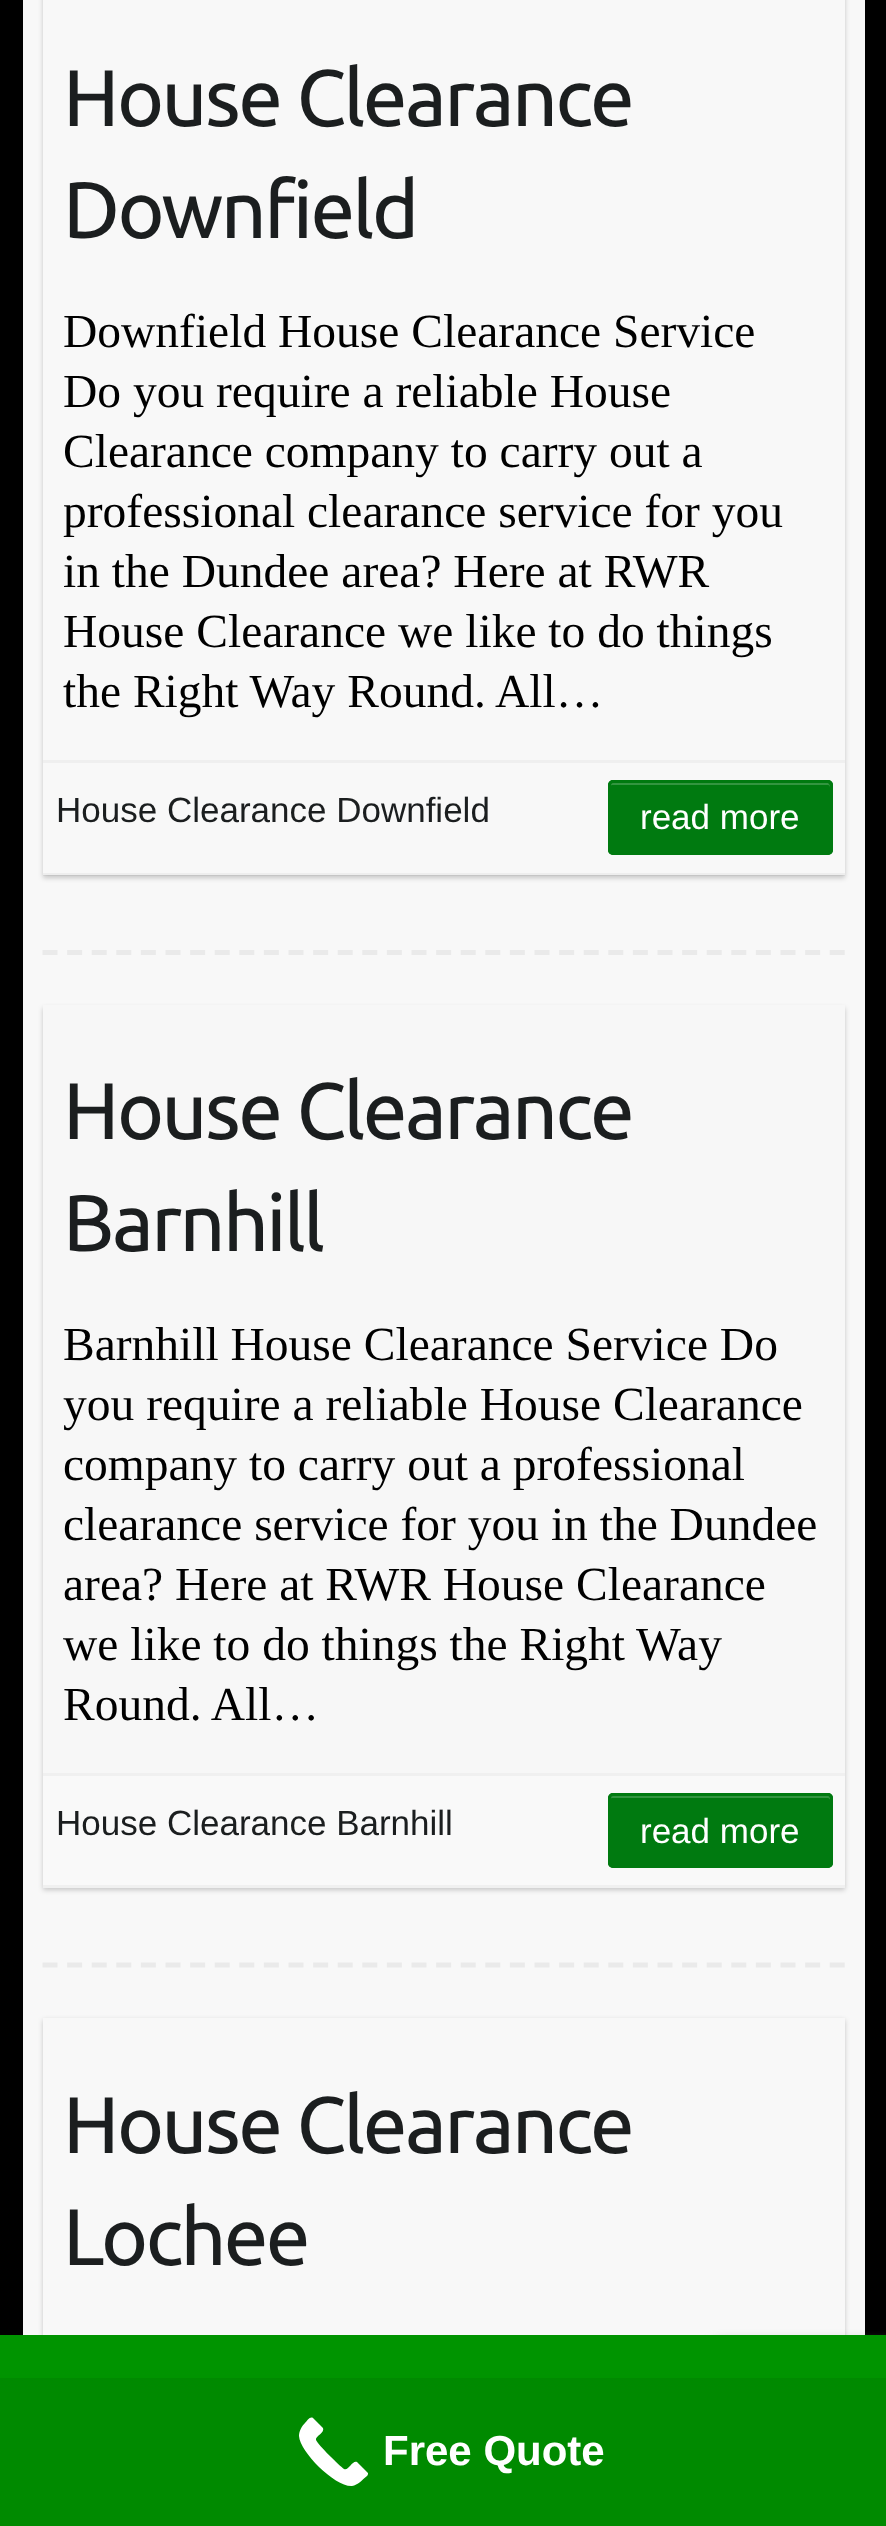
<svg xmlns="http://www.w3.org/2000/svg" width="886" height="2526">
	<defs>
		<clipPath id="clip1"><path d="M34 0H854V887H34ZM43-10H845V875H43Z" clip-rule="evenodd" /></clipPath>
		<clipPath id="clip2"><path d="M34 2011H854V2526H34ZM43 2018H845V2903H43Z" clip-rule="evenodd" /></clipPath>
	</defs>
	<rect width="100%" height="100%" fill="#000000" />
	<rect x="23" y="0" width="842" height="2335" fill="#F8F8F8" />
	<g clip-path="url(#clip1)">
		<rect x="43" y="-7" width="802" height="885" fill="#000000" fill-opacity="0.2" filter="blur(2.5px)" />
	</g>
	<g font-family="Ubuntu" font-size="80" letter-spacing="-2.5" fill="#1B1E1F">
		<text x="63" y="126">House Clearance</text>
		<text x="63" y="238">Downfield</text>
	</g>
	<g font-family="Liberation Serif" font-size="47.5" fill="#000000">
		<text x="63" y="347">Downfield House Clearance Service</text>
		<text x="63" y="407">Do you require a reliable House</text>
		<text x="63" y="467">Clearance company to carry out a</text>
		<text x="63" y="527">professional clearance service for you</text>
		<text x="63" y="587">in the Dundee area? Here at RWR</text>
		<text x="63" y="647">House Clearance we like to do things</text>
		<text x="63" y="707">the Right Way Round. All…</text>
	</g>
	<rect x="43" y="760" width="802" height="3" fill="#EFEFEF" />
	<rect x="43" y="873" width="802" height="3" fill="#000000" fill-opacity="0.04" />
	<text x="56" y="822" font-family="Liberation Sans" font-size="35" fill="#1B1E1F">House Clearance Downfield</text>
	<rect x="608" y="780" width="225" height="75" rx="5" fill="#007A10" />
	<path d="M612 785H828C829 785 830 786 830 788C830 786 830 784 828 783H612C610 784 610 786 610 788C610 786 611 785 612 785Z" fill="#339540" />
	<rect x="609.5" y="781.5" width="222" height="72" rx="3.5" fill="none" stroke="#007A10" stroke-width="3" />
	<text x="640" y="829" font-family="Liberation Sans" font-size="35" fill="#FFFFFF">read more</text>
	<path d="M42.5 952.5H845" fill="none" stroke="#EAEAEA" stroke-width="5" stroke-dasharray="15 9.6" />
	<rect x="43" y="1008" width="802" height="882" fill="#000000" fill-opacity="0.2" filter="blur(2.5px)" />
	<rect x="43" y="1005" width="802" height="768" fill="#F7F7F7" />
	<g font-family="Ubuntu" font-size="80" letter-spacing="-2.5" fill="#1B1E1F">
		<text x="63" y="1139">House Clearance</text>
		<text x="63" y="1251">Barnhill</text>
	</g>
	<g font-family="Liberation Serif" font-size="47.5" fill="#000000">
		<text x="63" y="1360">Barnhill House Clearance Service Do</text>
		<text x="63" y="1420">you require a reliable House Clearance</text>
		<text x="63" y="1480">company to carry out a professional</text>
		<text x="63" y="1540">clearance service for you in the Dundee</text>
		<text x="63" y="1600">area? Here at RWR House Clearance</text>
		<text x="63" y="1660">we like to do things the Right Way</text>
		<text x="63" y="1720">Round. All…</text>
	</g>
	<rect x="43" y="1776" width="802" height="109" fill="#F9F9F9" />
	<rect x="43" y="1773" width="802" height="3" fill="#F0F0F0" />
	<rect x="43" y="1885" width="802" height="3" fill="#F0F0F0" />
	<text x="56" y="1835" font-family="Liberation Sans" font-size="35" fill="#1B1E1F">House Clearance Barnhill</text>
	<rect x="608" y="1793" width="225" height="75" rx="5" fill="#007A10" />
	<path d="M612 1798H828C829 1798 830 1799 830 1800C830 1798 830 1796 828 1795H612C610 1796 610 1798 610 1800C610 1799 611 1798 612 1798Z" fill="#339540" />
	<rect x="609.5" y="1794.5" width="222" height="72" rx="3.5" fill="none" stroke="#007A10" stroke-width="3" />
	<text x="640" y="1843" font-family="Liberation Sans" font-size="35" fill="#FFFFFF">read more</text>
	<path d="M42.5 1965H845" fill="none" stroke="#EAEAEA" stroke-width="5" stroke-dasharray="15 9.6" />
	<g clip-path="url(#clip2)">
		<rect x="43" y="2020" width="802" height="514" fill="#000000" fill-opacity="0.2" filter="blur(2.5px)" />
	</g>
	<g font-family="Ubuntu" font-size="80" letter-spacing="-2.5" fill="#1B1E1F">
		<text x="63" y="2153">House Clearance</text>
		<text x="63" y="2265">Lochee</text>
	</g>
	<rect x="713" y="2343" width="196" height="150" rx="5" fill="#808080" filter="blur(6px)" />
	<rect x="0" y="2335" width="886" height="43" fill="#009400" />
	<rect x="0" y="2378" width="886" height="148" fill="#008A00" />
	<path d="M367 2476C362 2480 358 2485 352 2486C335 2487 300 2452 299 2436C299 2431 302 2426 305 2423C307 2421 310 2416 313 2418L323 2428C325 2433 315 2436 316 2440C318 2445 340 2466 344 2469C349 2471 352 2460 357 2462L368 2473C368 2474 368 2475 367 2476Z" fill="#FFFFFF" />
	<text x="383" y="2465" font-family="Liberation Sans" font-size="42" font-weight="700" fill="#FFFFFF">Free Quote</text>
</svg>
